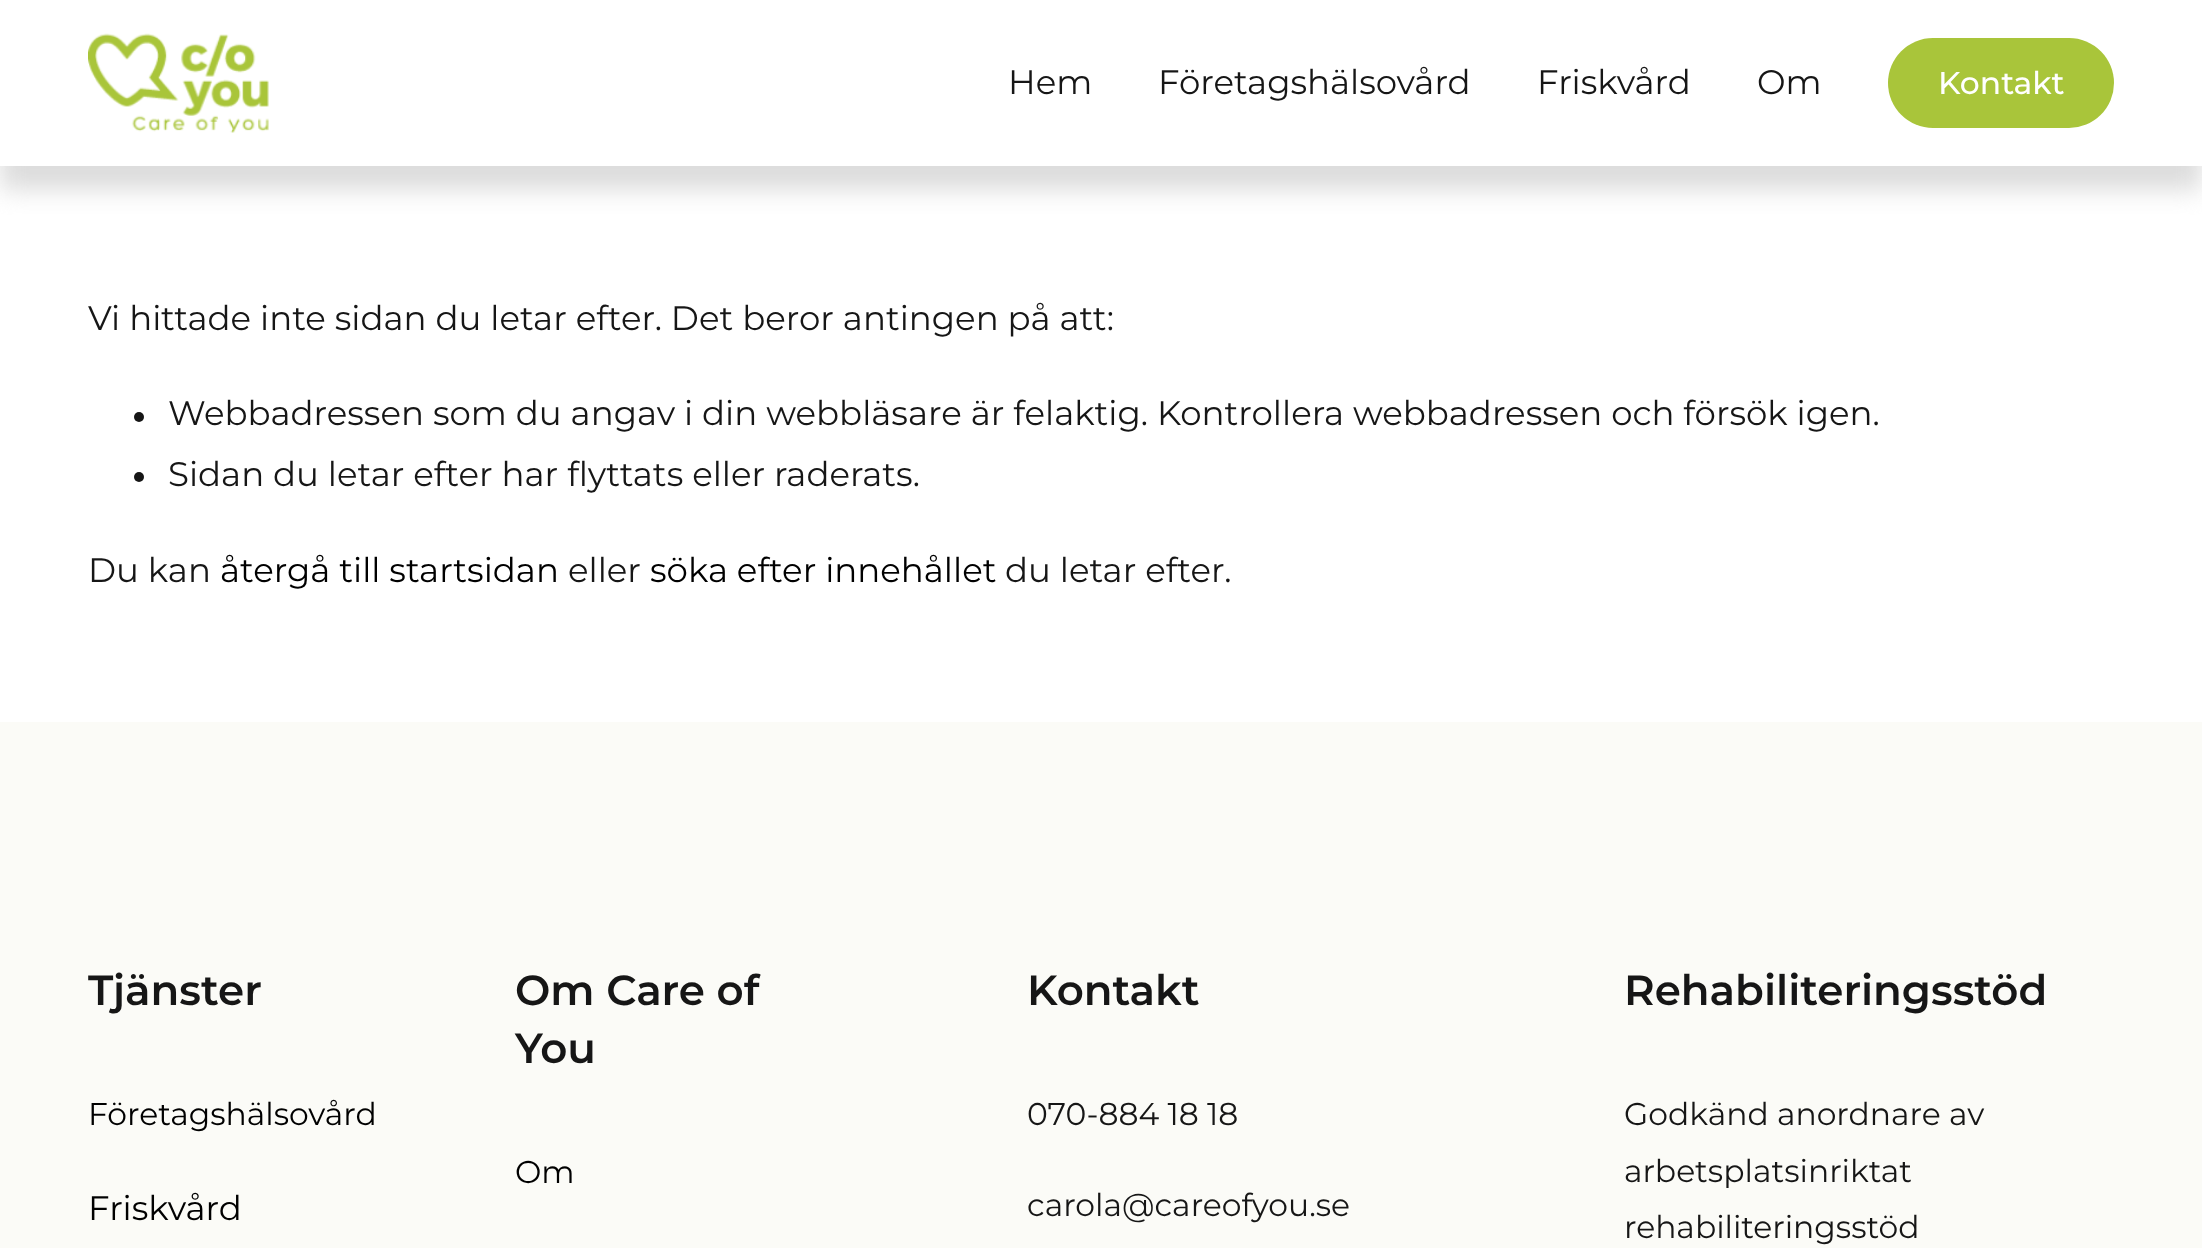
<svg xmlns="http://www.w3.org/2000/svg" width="2202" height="1248">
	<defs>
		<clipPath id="clip1"><rect x="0" y="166" width="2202" height="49" /></clipPath>
	</defs>
	<rect width="100%" height="100%" fill="#FFFFFF" />
	<g clip-path="url(#clip1)">
		<rect x="0" y="24" width="2202" height="166" fill="#DCDCDC" filter="blur(12px)" />
	</g>
	<image x="88" y="33" width="181" height="100" href="assets/img1.png" />
	<g font-family="Montserrat" font-size="34" fill="#161616">
		<text x="1008" y="94">Hem</text>
		<text x="1158" y="94">Företagshälsovård</text>
		<text x="1537" y="94">Friskvård</text>
		<text x="1757" y="94">Om</text>
	</g>
	<rect x="1888" y="38" width="226" height="90" rx="45" fill="#A9C53A" />
	<text x="1938" y="94" font-family="Montserrat" font-size="31.4" font-weight="500" fill="#FFFFFF">Kontakt</text>
	<text x="88" y="330" font-family="Montserrat" font-size="34" fill="#161616">Vi hittade inte sidan du letar efter. Det beror antingen på att:</text>
	<circle cx="139" cy="417" r="5" fill="#161616" />
	<text x="168" y="425" font-family="Montserrat" font-size="34" fill="#161616">Webbadressen som du angav i din webbläsare är felaktig. Kontrollera webbadressen och försök igen.</text>
	<circle cx="139" cy="477" r="5" fill="#161616" />
	<g font-family="Montserrat" font-size="34" fill="#161616">
		<text x="168" y="486">Sidan du letar efter har flyttats eller raderats.</text>
		<text x="88" y="582">Du kan</text>
	</g>
	<text x="220" y="582" font-family="Montserrat" font-size="34" fill="#000000">återgå till startsidan</text>
	<text x="568" y="582" font-family="Montserrat" font-size="34" fill="#161616">eller</text>
	<text x="650" y="582" font-family="Montserrat" font-size="34" fill="#000000">söka efter innehållet</text>
	<text x="1005" y="582" font-family="Montserrat" font-size="34" fill="#161616">du letar efter.</text>
	<rect x="0" y="722" width="2202" height="526" fill="#FBFBF7" />
	<text x="88" y="1005" font-family="Montserrat" font-size="42" font-weight="600" fill="#161616">Tjänster</text>
	<text x="88" y="1125" font-family="Montserrat" font-size="31.4" fill="#000000">Företagshälsovård</text>
	<text x="88" y="1220" font-family="Montserrat" font-size="34" fill="#000000">Friskvård</text>
	<g font-family="Montserrat" font-size="42" font-weight="600" fill="#161616">
		<text x="515" y="1005">Om Care of</text>
		<text x="515" y="1063">You</text>
	</g>
	<text x="515" y="1183" font-family="Montserrat" font-size="31.4" fill="#000000">Om</text>
	<text x="1027" y="1005" font-family="Montserrat" font-size="42" font-weight="600" fill="#161616">Kontakt</text>
	<g font-family="Montserrat" font-size="31.4" fill="#161616">
		<text x="1027" y="1125">070-884 18 18</text>
		<text x="1027" y="1216">carola@careofyou.se</text>
	</g>
	<text x="1624" y="1005" font-family="Montserrat" font-size="42" font-weight="600" fill="#161616">Rehabiliteringsstöd</text>
	<g font-family="Montserrat" font-size="31.4" fill="#161616">
		<text x="1624" y="1125">Godkänd anordnare av</text>
		<text x="1624" y="1182">arbetsplatsinriktat</text>
		<text x="1624" y="1238">rehabiliteringsstöd</text>
	</g>
</svg>
